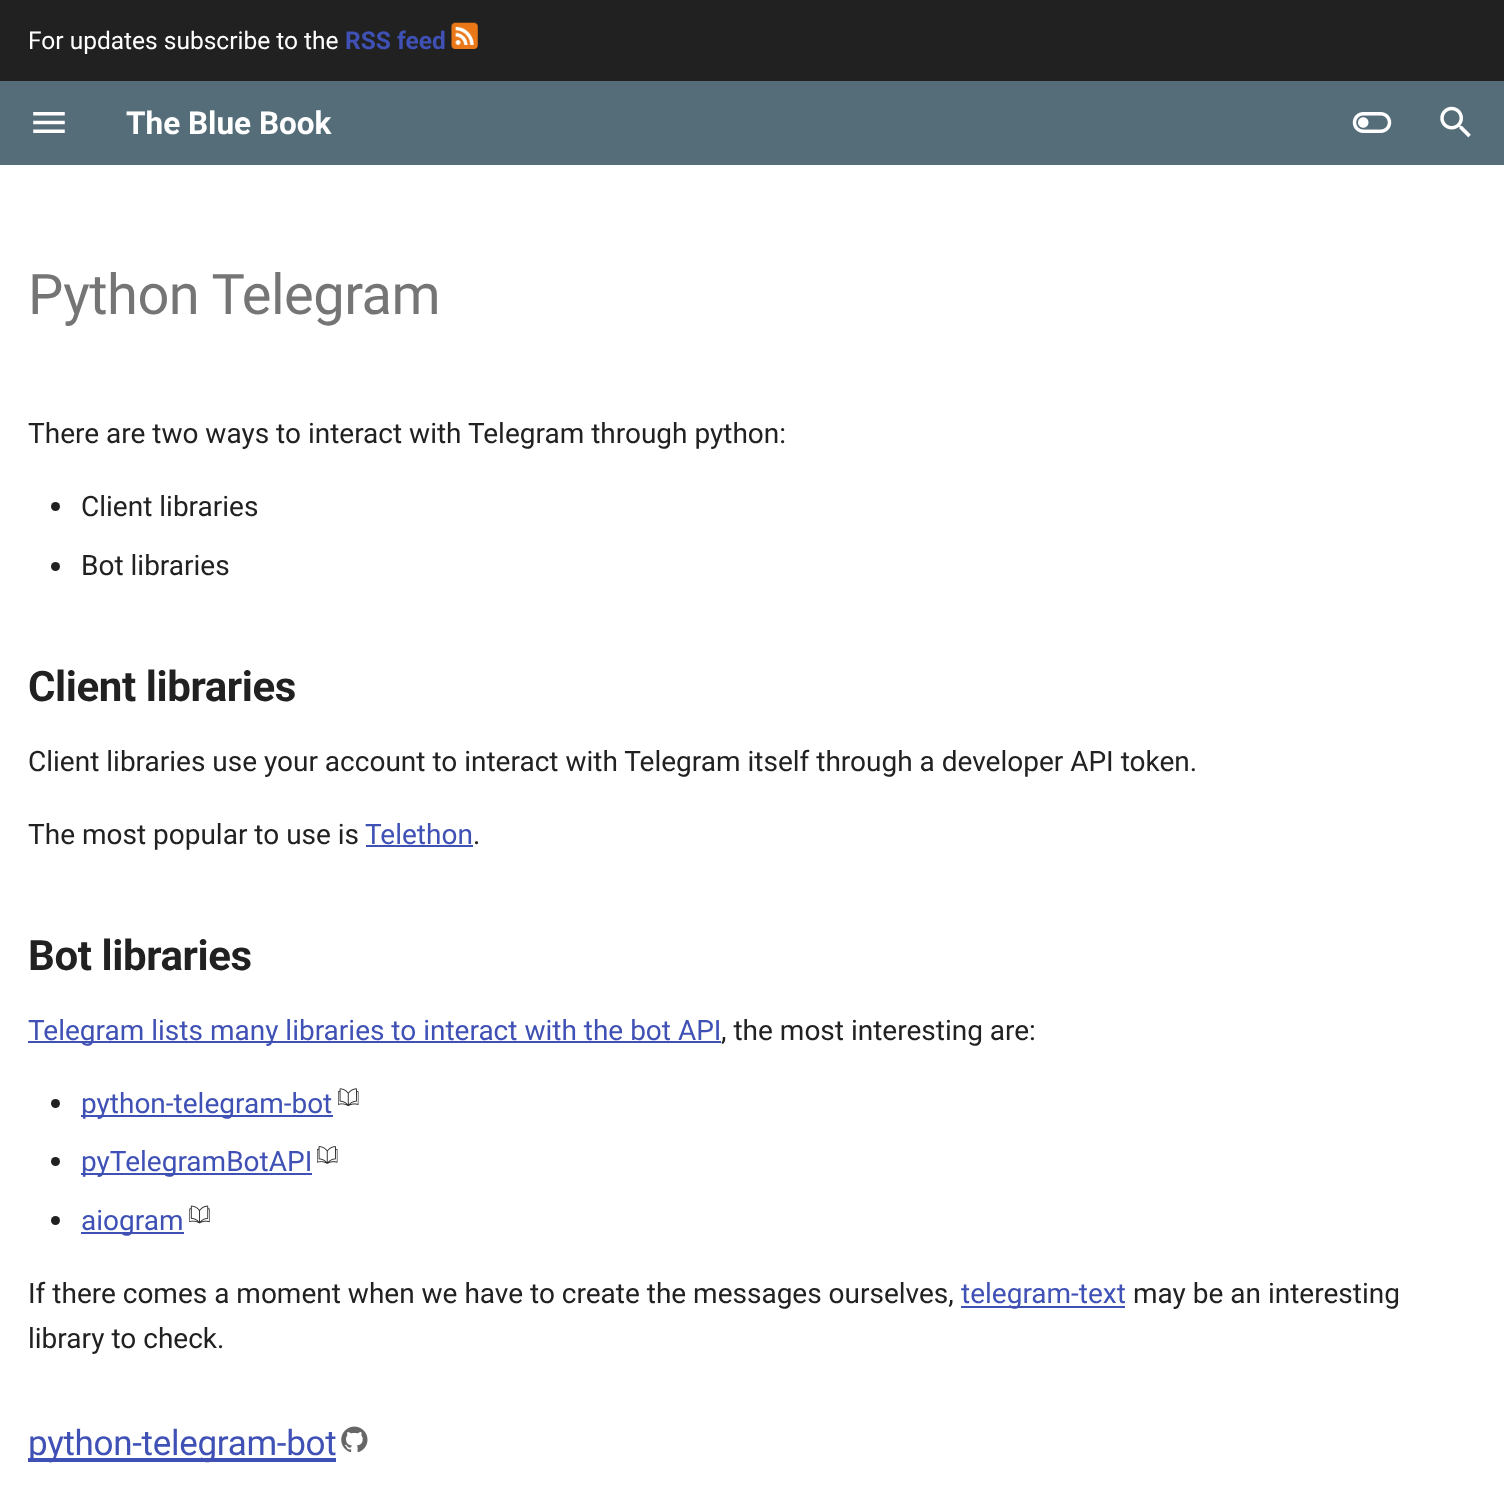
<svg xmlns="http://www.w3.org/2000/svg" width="1504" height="1502">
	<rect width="100%" height="100%" fill="#FFFFFF" />
	<rect x="0" y="0" width="1504" height="81" fill="#212121" />
	<text x="28" y="49" font-family="Roboto" font-size="24.5" fill="#FFFFFF">For updates subscribe to the</text>
	<text x="345" y="49" font-family="Roboto" font-size="24.5" font-weight="700" fill="#4051B5">RSS feed</text>
	<image x="451" y="22" width="27" height="27" href="assets/img1.png" />
	<rect x="0" y="81" width="1504" height="84" fill="#546D78" />
	<image x="33" y="112" width="32" height="21" href="assets/img2.png" />
	<text x="126" y="134" font-family="Roboto" font-size="31.5" font-weight="700" fill="#FFFFFF">The Blue Book</text>
	<image x="1352" y="112" width="40" height="21" href="assets/img3.png" />
	<image x="1440" y="106" width="31" height="32" href="assets/img4.png" />
	<text x="28" y="314" font-family="Roboto" font-size="56" letter-spacing="-0.5" fill="#757575">Python Telegram</text>
	<text x="28" y="443" font-family="Roboto" font-size="28" fill="#212121">There are two ways to interact with Telegram through python:</text>
	<circle cx="55.5" cy="506.5" r="4.5" fill="#212121" />
	<text x="81" y="516" font-family="Roboto" font-size="28" fill="#212121">Client libraries</text>
	<circle cx="55.5" cy="566.5" r="4.5" fill="#212121" />
	<text x="81" y="575" font-family="Roboto" font-size="28" fill="#212121">Bot libraries</text>
	<text x="28" y="701" font-family="Roboto" font-size="42" font-weight="700" letter-spacing="-0.4" fill="#212121">Client libraries</text>
	<g font-family="Roboto" font-size="28" fill="#212121">
		<text x="28" y="771">Client libraries use your account to interact with Telegram itself through a developer API token.</text>
		<text x="28" y="844">The most popular to use is</text>
	</g>
	<text x="365" y="844" font-family="Roboto" font-size="28" fill="#4051B5">Telethon</text>
	<rect x="366" y="845" width="107" height="2" fill="#4051B5" />
	<text x="473" y="844" font-family="Roboto" font-size="28" fill="#212121">.</text>
	<text x="28" y="970" font-family="Roboto" font-size="42" font-weight="700" letter-spacing="-0.4" fill="#212121">Bot libraries</text>
	<rect x="28" y="1041" width="693" height="2" fill="#4051B5" />
	<text x="28" y="1040" font-family="Roboto" font-size="28" fill="#4051B5">Telegram lists many libraries to interact with the bot API</text>
	<text x="721" y="1040" font-family="Roboto" font-size="28" fill="#212121">, the most interesting are:</text>
	<circle cx="55.5" cy="1103.5" r="4.5" fill="#212121" />
	<rect x="81" y="1115" width="252" height="2" fill="#4051B5" />
	<text x="81" y="1113" font-family="Roboto" font-size="28" fill="#4051B5">python-telegram-bot</text>
	<image x="338" y="1088" width="21" height="19" href="assets/img5.png" />
	<circle cx="55.5" cy="1161.5" r="4.5" fill="#212121" />
	<rect x="81" y="1173" width="231" height="2" fill="#4051B5" />
	<text x="81" y="1171" font-family="Roboto" font-size="28" fill="#4051B5">pyTelegramBotAPI</text>
	<image x="317" y="1146" width="21" height="18" href="assets/img6.png" />
	<circle cx="55.5" cy="1220.5" r="4.5" fill="#212121" />
	<rect x="81" y="1232" width="103" height="2" fill="#4051B5" />
	<text x="81" y="1230" font-family="Roboto" font-size="28" fill="#4051B5">aiogram</text>
	<image x="189" y="1205" width="21" height="19" href="assets/img7.png" />
	<text x="28" y="1303" font-family="Roboto" font-size="28" fill="#212121">If there comes a moment when we have to create the messages ourselves,</text>
	<rect x="961" y="1306" width="164" height="2" fill="#4051B5" />
	<text x="961" y="1303" font-family="Roboto" font-size="28" fill="#4051B5">telegram-text</text>
	<g font-family="Roboto" font-size="28" fill="#212121">
		<text x="1133" y="1303">may be an interesting</text>
		<text x="28" y="1348">library to check.</text>
	</g>
	<rect x="28" y="1458" width="308" height="4" fill="#4051B5" />
	<text x="28" y="1455" font-family="Roboto" font-size="35" letter-spacing="-0.3" fill="#4051B5">python-telegram-bot</text>
	<image x="341" y="1426" width="27" height="27" href="assets/img8.png" />
</svg>
